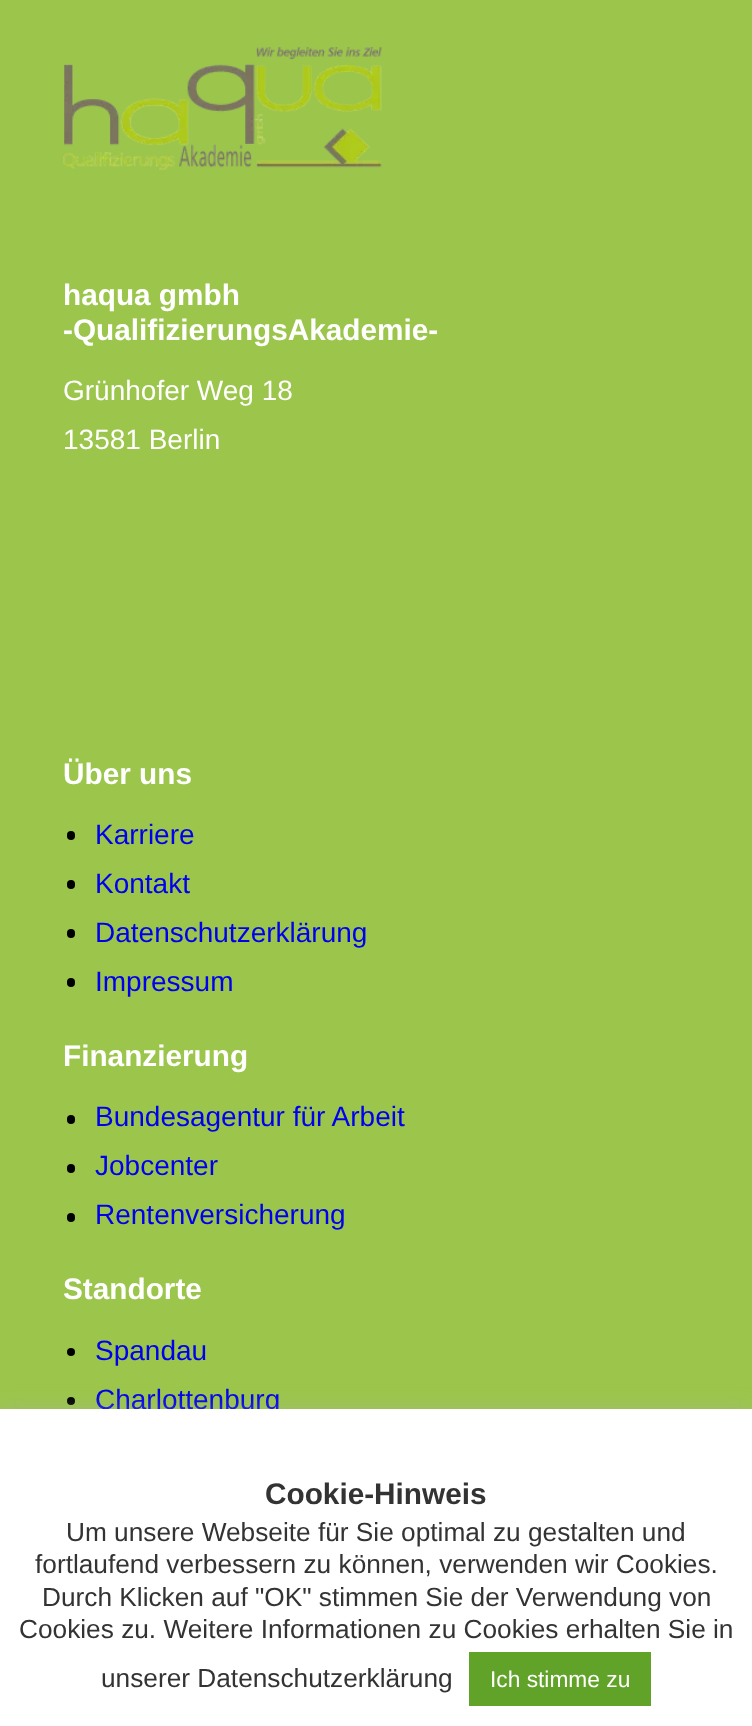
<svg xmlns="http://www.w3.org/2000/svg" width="752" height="1726">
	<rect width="100%" height="100%" fill="#9BC64B" />
	<image x="63" y="47" width="319" height="123" href="assets/img1.png" />
	<g font-family="Liberation Sans" font-size="29.75" font-weight="700" fill="#FFFFFF">
		<text x="63" y="305">haqua gmbh</text>
		<text x="63" y="340">-QualifizierungsAkademie-</text>
	</g>
	<g font-family="Liberation Sans" font-size="28" fill="#FFFFFF">
		<text x="63" y="400">Grünhofer Weg 18</text>
		<text x="63" y="449">13581 Berlin</text>
	</g>
	<text x="63" y="784" font-family="Liberation Sans" font-size="29.75" font-weight="700" fill="#FFFFFF">Über uns</text>
	<rect x="67" y="831" width="8" height="9" rx="4" fill="#000000" />
	<text x="95" y="844" font-family="Liberation Sans" font-size="28" fill="#0000EE">Karriere</text>
	<rect x="67" y="880" width="8" height="9" rx="4" fill="#000000" />
	<text x="95" y="893" font-family="Liberation Sans" font-size="28" fill="#0000EE">Kontakt</text>
	<rect x="67" y="929" width="8" height="9" rx="4" fill="#000000" />
	<text x="95" y="942" font-family="Liberation Sans" font-size="28" fill="#0000EE">Datenschutzerklärung</text>
	<rect x="67" y="978" width="8" height="9" rx="4" fill="#000000" />
	<text x="95" y="991" font-family="Liberation Sans" font-size="28" fill="#0000EE">Impressum</text>
	<text x="63" y="1066" font-family="Liberation Sans" font-size="29.75" font-weight="700" fill="#FFFFFF">Finanzierung</text>
	<rect x="67" y="1115" width="8" height="9" rx="4" fill="#000000" />
	<text x="95" y="1126" font-family="Liberation Sans" font-size="28" fill="#0000EE">Bundesagentur für Arbeit</text>
	<rect x="67" y="1164" width="8" height="9" rx="4" fill="#000000" />
	<text x="95" y="1175" font-family="Liberation Sans" font-size="28" fill="#0000EE">Jobcenter</text>
	<rect x="67" y="1213" width="8" height="9" rx="4" fill="#000000" />
	<text x="95" y="1224" font-family="Liberation Sans" font-size="28" fill="#0000EE">Rentenversicherung</text>
	<text x="63" y="1299" font-family="Liberation Sans" font-size="29.75" font-weight="700" fill="#FFFFFF">Standorte</text>
	<circle cx="71" cy="1352" r="4" fill="#000000" />
	<text x="95" y="1360" font-family="Liberation Sans" font-size="28" fill="#0000EE">Spandau</text>
	<circle cx="71" cy="1401" r="4" fill="#000000" />
	<text x="95" y="1409" font-family="Liberation Sans" font-size="28" fill="#0000EE">Charlottenburg</text>
	<rect x="0" y="1407" width="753" height="319" fill="#ACABAB" fill-opacity="0.3" filter="blur(9px)" />
	<rect x="0" y="1409" width="752" height="317" fill="#FFFFFF" />
	<text x="265" y="1504" font-family="Liberation Sans" font-size="29.75" font-weight="700" fill="#333333">Cookie-Hinweis</text>
	<g font-family="Liberation Sans" font-size="26.25" fill="#333333">
		<text x="66" y="1541">Um unsere Webseite für Sie optimal zu gestalten und</text>
		<text x="35" y="1573">fortlaufend verbessern zu können, verwenden wir Cookies.</text>
		<text x="42" y="1606">Durch Klicken auf "OK" stimmen Sie der Verwendung von</text>
		<text x="19" y="1638">Cookies zu. Weitere Informationen zu Cookies erhalten Sie in</text>
		<text x="101" y="1687">unserer Datenschutzerklärung</text>
	</g>
	<rect x="469" y="1652" width="182" height="54" fill="#61A229" />
	<text x="490" y="1687" font-family="Liberation Sans" font-size="22.75" fill="#FFFFFF">Ich stimme zu</text>
</svg>
